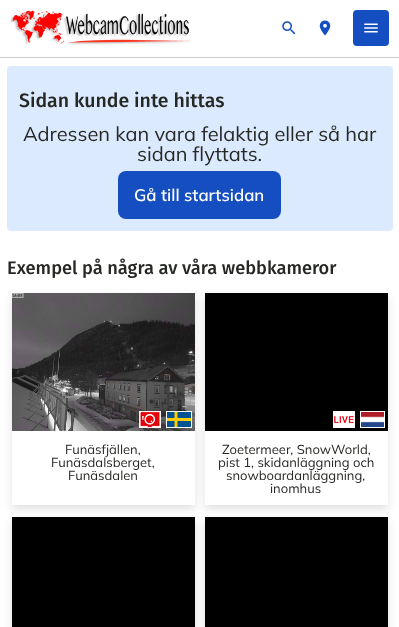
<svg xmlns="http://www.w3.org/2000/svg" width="399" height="627">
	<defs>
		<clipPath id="clip1"><path d="M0 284H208V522H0ZM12 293H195V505H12Z" clip-rule="evenodd" /></clipPath>
		<clipPath id="clip2"><path d="M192 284H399V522H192ZM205 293H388V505H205Z" clip-rule="evenodd" /></clipPath>
	</defs>
	<rect width="100%" height="100%" fill="#FFFFFF" />
	<rect x="0" y="57" width="399" height="1" fill="#CCCCCC" />
	<image x="10" y="10" width="180" height="35" href="assets/img1.png" />
	<image x="282" y="21" width="14" height="14" href="assets/img2.png" />
	<image x="319" y="20" width="12" height="16" href="assets/img3.png" />
	<rect x="353" y="10" width="36" height="36" rx="4" fill="#154EC1" />
	<image x="364" y="23" width="14" height="10" href="assets/img4.png" />
	<rect x="7" y="66" width="386" height="165" rx="4" fill="#DBEAFF" />
	<text x="19" y="107" font-family="Fira Sans" font-size="19.5" font-weight="500" fill="#262824">Sidan kunde inte hittas</text>
	<g font-family="Mulish" font-size="20" fill="#262824">
		<text x="23" y="141">Adressen kan vara felaktig eller så har</text>
		<text x="137" y="161">sidan flyttats.</text>
	</g>
	<rect x="118" y="171" width="163" height="48" rx="8" fill="#154EC1" />
	<text x="134" y="201" font-family="Mulish" font-size="16.75" font-weight="600" fill="#FFFFFF">Gå till startsidan</text>
	<text x="7" y="274" font-family="Fira Sans" font-size="18.25" font-weight="500" fill="#262824">Exempel på några av våra webbkameror</text>
	<g clip-path="url(#clip1)">
		<rect x="12" y="297" width="183" height="212" fill="#000000" fill-opacity="0.12" filter="blur(4px)" />
	</g>
	<image x="12" y="293" width="183" height="138" href="assets/img5.png" />
	<image x="139" y="411" width="22" height="17" href="assets/img6.png" />
	<rect x="166.5" y="411.5" width="25" height="16" fill="none" stroke="#FFFFFF" />
	<image x="167" y="412" width="24" height="15" href="assets/img7.png" />
	<g font-family="Mulish" font-size="13" fill="#262824">
		<text x="65" y="454">Funäsfjällen,</text>
		<text x="51" y="467">Funäsdalsberget,</text>
		<text x="68" y="480">Funäsdalen</text>
	</g>
	<g clip-path="url(#clip2)">
		<rect x="205" y="297" width="183" height="212" fill="#000000" fill-opacity="0.12" filter="blur(4px)" />
	</g>
	<rect x="205" y="293" width="183" height="138" fill="#000000" />
	<image x="333" y="411" width="22" height="17" href="assets/img8.png" />
	<rect x="360.5" y="411.5" width="24" height="16" fill="none" stroke="#FFFFFF" />
	<image x="361" y="412" width="23" height="15" href="assets/img9.png" />
	<g font-family="Mulish" font-size="13" fill="#262824">
		<text x="222" y="454">Zoetermeer, SnowWorld,</text>
		<text x="218" y="467">pist 1, skidanläggning och</text>
		<text x="226" y="480">snowboardanläggning,</text>
		<text x="270" y="493">inomhus</text>
	</g>
	<rect x="12" y="521" width="183" height="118" fill="#000000" fill-opacity="0.12" filter="blur(4px)" />
	<rect x="12" y="517" width="183" height="110" fill="#000000" />
	<rect x="205" y="521" width="183" height="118" fill="#000000" fill-opacity="0.12" filter="blur(4px)" />
	<rect x="205" y="517" width="183" height="110" fill="#000000" />
</svg>
